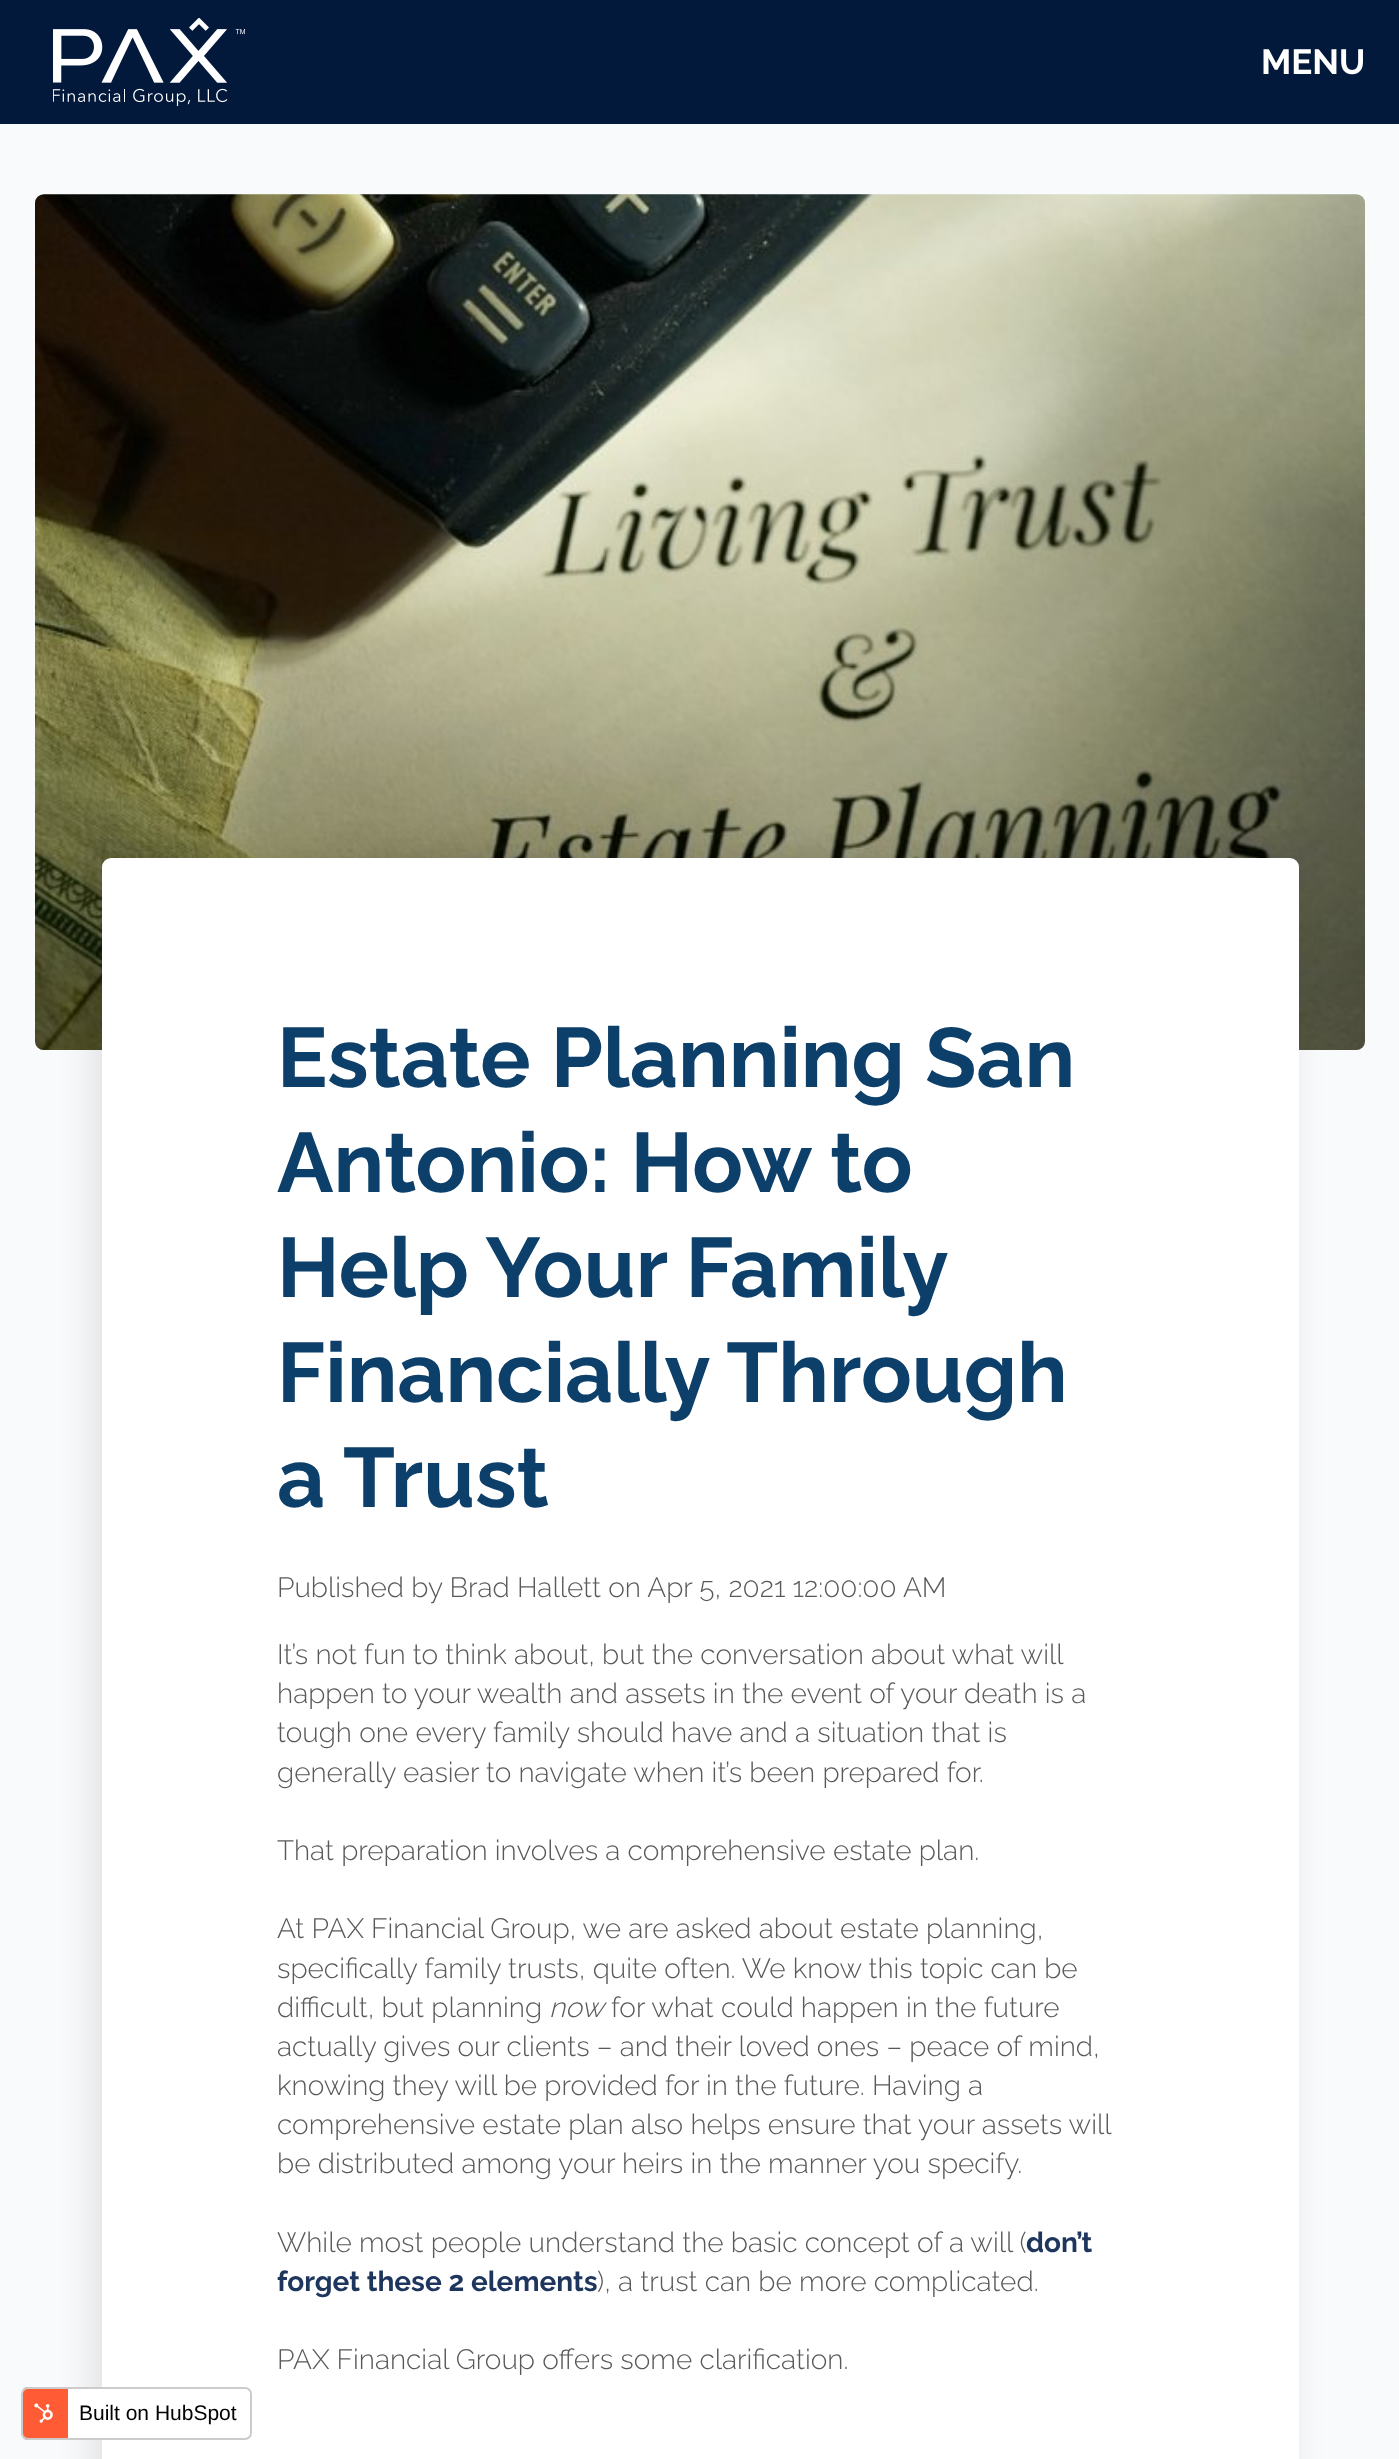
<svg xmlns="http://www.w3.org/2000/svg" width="1399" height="2459">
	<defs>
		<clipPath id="clip1"><rect x="21" y="2387" width="231" height="53" rx="7" /></clipPath>
	</defs>
	<rect width="100%" height="100%" fill="#F8FAFC" />
	<rect x="0" y="0" width="1399" height="124" fill="#02193C" />
	<image x="53" y="18" width="192" height="88" href="assets/img1.png" />
	<text x="1261" y="74" font-family="Raleway" font-size="35" font-weight="700" fill="#FFFFFF">MENU</text>
	<image x="35" y="194" width="1330" height="856" href="assets/img2.png" />
	<rect x="93" y="858" width="1197" height="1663" rx="9" fill="#000000" fill-opacity="0.1" filter="blur(17.5px)" />
	<rect x="102" y="858" width="1197" height="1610" rx="9" fill="#FFFFFF" />
	<g font-family="Raleway" font-size="84" font-weight="700" fill="#0C3F69">
		<text x="277" y="1087">Estate Planning San</text>
		<text x="277" y="1192">Antonio: How to</text>
		<text x="277" y="1297" word-spacing="-1">Help Your Family</text>
		<text x="277" y="1402">Financially Through</text>
		<text x="277" y="1507">a Trust</text>
	</g>
	<g font-family="Raleway" font-size="28" font-weight="300" fill="#58595B">
		<text x="277" y="1597">Published by Brad Hallett on Apr 5, 2021 12:00:00 AM</text>
		<text x="277" y="1664">It’s not fun to think about, but the conversation about what will</text>
		<text x="277" y="1703">happen to your wealth and assets in the event of your death is a</text>
		<text x="277" y="1742">tough one every family should have and a situation that is</text>
		<text x="277" y="1782">generally easier to navigate when it’s been prepared for.</text>
		<text x="277" y="1860">That preparation involves a comprehensive estate plan.</text>
		<text x="277" y="1938">At PAX Financial Group, we are asked about estate planning,</text>
		<text x="277" y="1978">specifically family trusts, quite often. We know this topic can be</text>
		<text x="277" y="2017">difficult, but planning</text>
	</g>
	<text x="549" y="2017" font-family="Raleway" font-size="28" font-weight="300" font-style="italic" fill="#58595B">now</text>
	<g font-family="Raleway" font-size="28" font-weight="300" fill="#58595B">
		<text x="611" y="2017">for what could happen in the future</text>
		<text x="277" y="2056">actually gives our clients – and their loved ones – peace of mind,</text>
		<text x="277" y="2095">knowing they will be provided for in the future. Having a</text>
		<text x="277" y="2134">comprehensive estate plan also helps ensure that your assets will</text>
		<text x="277" y="2173">be distributed among your heirs in the manner you specify.</text>
		<text x="277" y="2252">While most people understand the basic concept of a will (</text>
	</g>
	<g font-family="Raleway" font-size="28" font-weight="700" fill="#1E355E">
		<text x="1026" y="2252">don’t</text>
		<text x="277" y="2291">forget these 2 elements</text>
	</g>
	<g font-family="Raleway" font-size="28" font-weight="300" fill="#58595B">
		<text x="597" y="2291">), a trust can be more complicated.</text>
		<text x="277" y="2369">PAX Financial Group offers some clarification.</text>
	</g>
	<g clip-path="url(#clip1)">
		<rect x="23" y="2387" width="45" height="53" fill="#FF5C35" />
		<rect x="68" y="2387" width="182" height="53" fill="#FFFFFF" />
	</g>
	<rect x="22" y="2388" width="229" height="51" rx="6" fill="none" stroke="#CCCCCC" stroke-width="2" />
	<image x="34" y="2403" width="19" height="20" href="assets/img3.png" />
	<text x="79" y="2420" font-family="Liberation Sans" font-size="21" fill="#000000">Built on HubSpot</text>
</svg>
